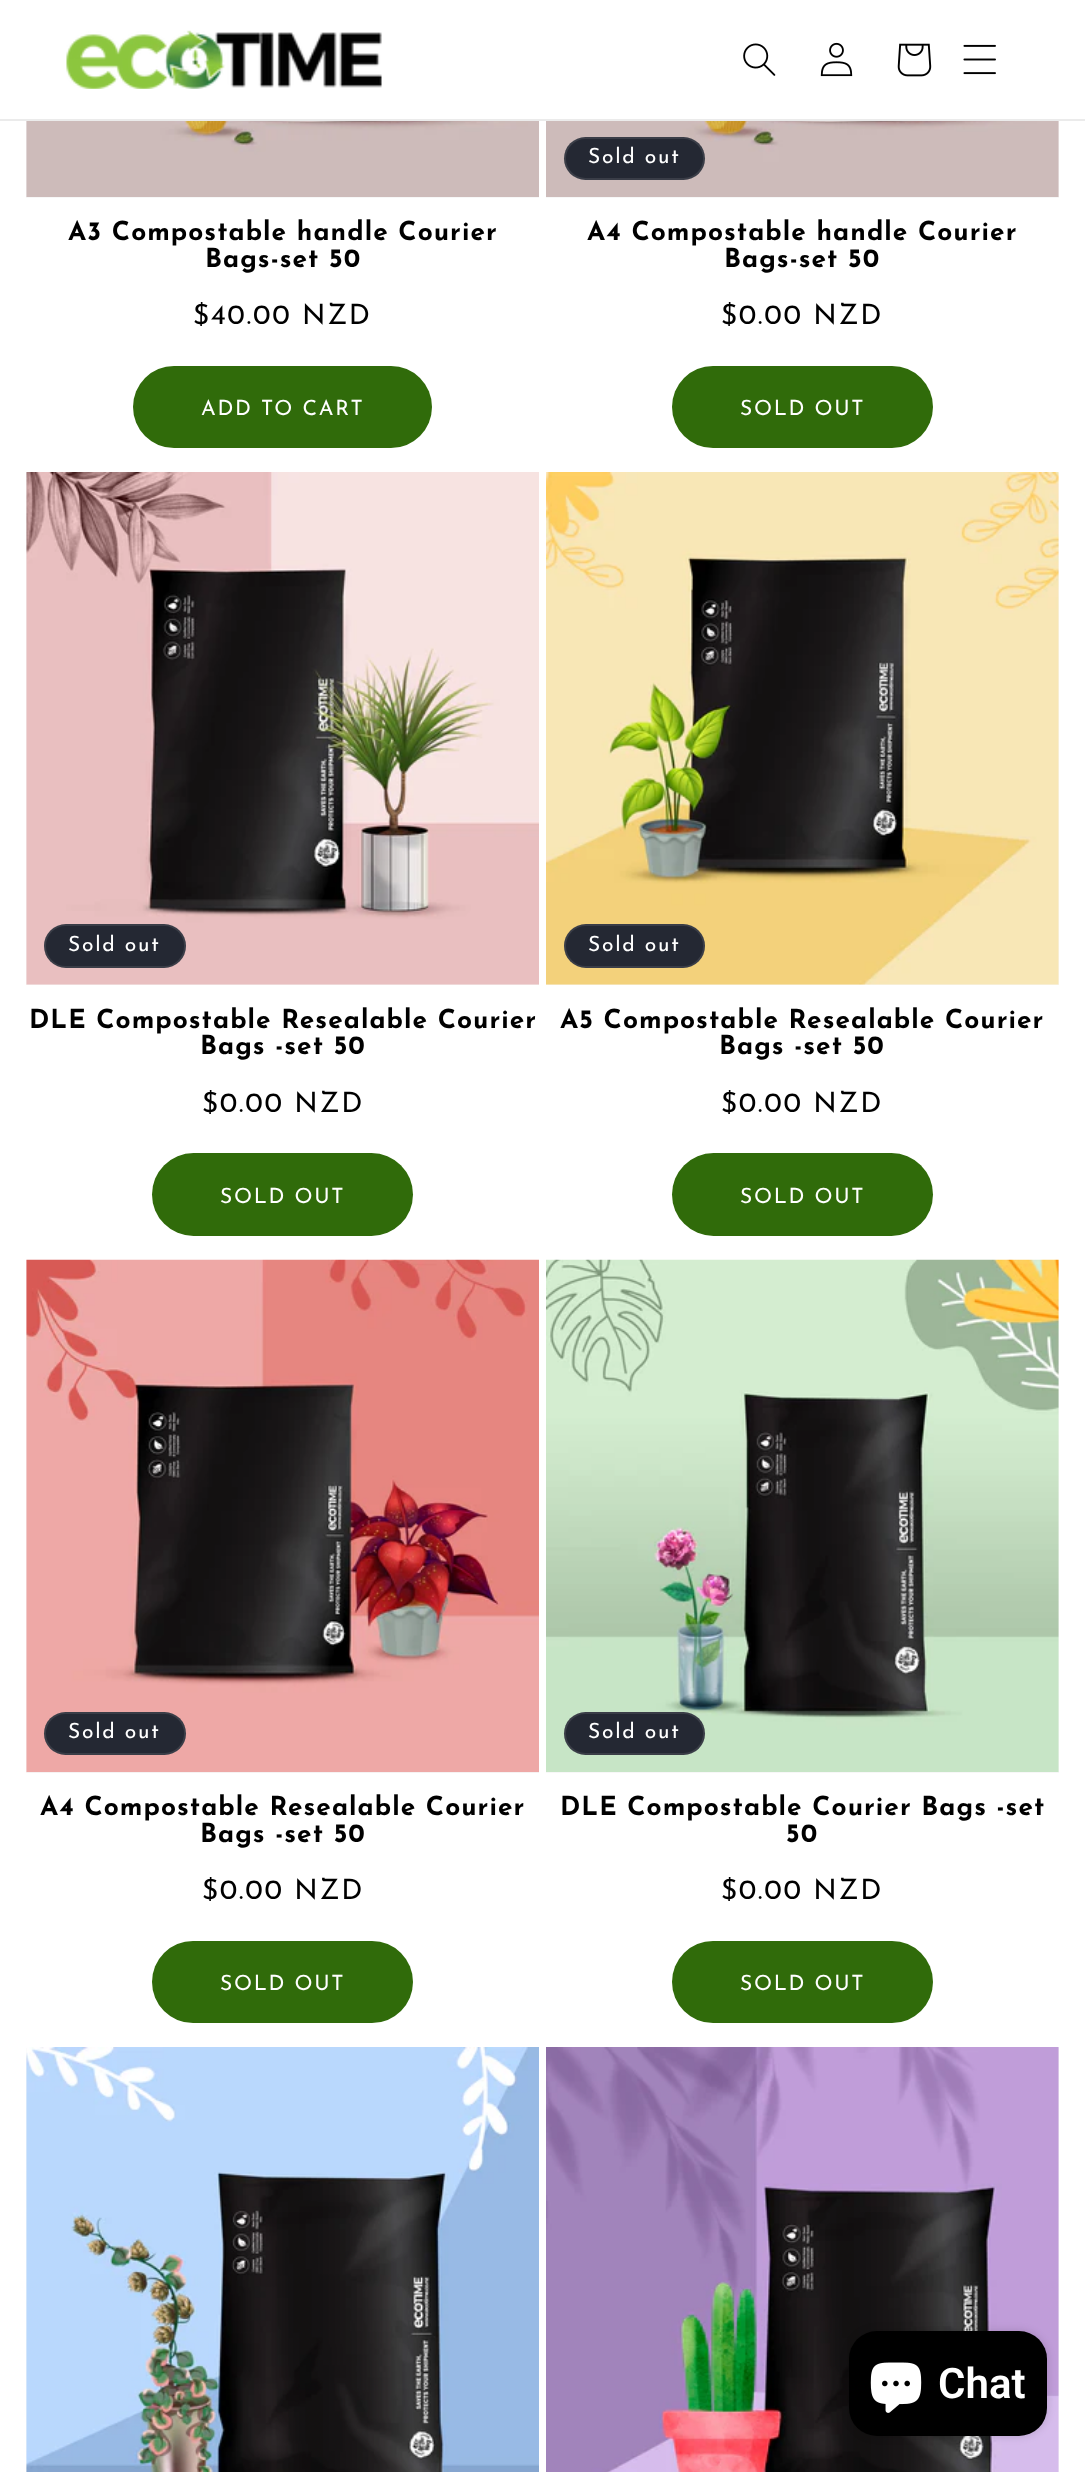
<svg xmlns="http://www.w3.org/2000/svg" width="1085" height="2472">
	<rect width="100%" height="100%" fill="#FFFFFF" />
	<rect x="0" y="119" width="1085" height="2" fill="#EBEBEB" />
	<image x="66" y="30" width="316" height="59" href="assets/img1.png" />
	<image x="743" y="43" width="33" height="33" href="assets/img2.png" />
	<image x="820" y="42" width="33" height="35" href="assets/img3.png" />
	<image x="897" y="43" width="35" height="34" href="assets/img4.png" />
	<image x="963" y="44" width="33" height="31" href="assets/img5.png" />
	<rect x="26" y="121" width="513" height="77" fill="#F7F7F7" />
	<image x="26" y="121" width="513" height="76" href="assets/img6.png" />
	<g font-family="Josefin Sans" font-size="26.25" font-weight="700" letter-spacing="1.05" fill="#000000">
		<text x="68" y="240">A3 Compostable handle Courier</text>
		<text x="205" y="267">Bags-set 50</text>
	</g>
	<text x="193" y="324" font-family="Josefin Sans" font-size="28" letter-spacing="1.75" fill="#000000">$40.00 NZD</text>
	<rect x="133" y="366" width="299" height="82" rx="41" fill="#306B0A" />
	<text x="201" y="415" font-family="Josefin Sans" font-size="21" letter-spacing="1.75" fill="#FFFFFF">ADD TO CART</text>
	<rect x="546" y="121" width="513" height="77" fill="#F7F7F7" />
	<image x="546" y="121" width="513" height="76" href="assets/img7.png" />
	<rect x="564" y="137" width="141" height="43" rx="21.5" fill="#242833" />
	<rect x="565" y="138" width="139" height="41" rx="20.5" fill="none" stroke="#FFFFFF" stroke-opacity="0.1" stroke-width="2" />
	<text x="588" y="163" font-family="Josefin Sans" font-size="21" letter-spacing="1.75" fill="#FFFFFF">Sold out</text>
	<g font-family="Josefin Sans" font-size="26.25" font-weight="700" letter-spacing="1.05" fill="#000000">
		<text x="587" y="240">A4 Compostable handle Courier</text>
		<text x="724" y="267">Bags-set 50</text>
	</g>
	<text x="721" y="324" font-family="Josefin Sans" font-size="28" letter-spacing="1.75" fill="#000000">$0.00 NZD</text>
	<rect x="672" y="366" width="261" height="82" rx="41" fill="#306B0A" />
	<text x="740" y="415" font-family="Josefin Sans" font-size="21" letter-spacing="1.75" fill="#FFFFFF">SOLD OUT</text>
	<rect x="26" y="473" width="513" height="512" fill="#F7F7F7" />
	<image x="26" y="472" width="513" height="513" href="assets/img8.png" />
	<rect x="44" y="924" width="142" height="44" rx="22" fill="#242833" />
	<rect x="45" y="925" width="140" height="42" rx="21" fill="none" stroke="#FFFFFF" stroke-opacity="0.1" stroke-width="2" />
	<text x="68" y="951" font-family="Josefin Sans" font-size="21" letter-spacing="1.75" fill="#FFFFFF">Sold out</text>
	<g font-family="Josefin Sans" font-size="26.25" font-weight="700" letter-spacing="1.05" fill="#000000">
		<text x="29" y="1028">DLE Compostable Resealable Courier</text>
		<text x="200" y="1054">Bags -set 50</text>
	</g>
	<text x="202" y="1112" font-family="Josefin Sans" font-size="28" letter-spacing="1.75" fill="#000000">$0.00 NZD</text>
	<rect x="152" y="1153" width="261" height="83" rx="41.5" fill="#306B0A" />
	<text x="220" y="1203" font-family="Josefin Sans" font-size="21" letter-spacing="1.75" fill="#FFFFFF">SOLD OUT</text>
	<rect x="546" y="473" width="513" height="512" fill="#F7F7F7" />
	<image x="546" y="472" width="513" height="513" href="assets/img9.png" />
	<rect x="564" y="924" width="141" height="44" rx="22" fill="#242833" />
	<rect x="565" y="925" width="139" height="42" rx="21" fill="none" stroke="#FFFFFF" stroke-opacity="0.1" stroke-width="2" />
	<text x="588" y="951" font-family="Josefin Sans" font-size="21" letter-spacing="1.75" fill="#FFFFFF">Sold out</text>
	<g font-family="Josefin Sans" font-size="26.25" font-weight="700" letter-spacing="1.05" fill="#000000">
		<text x="560" y="1028">A5 Compostable Resealable Courier</text>
		<text x="719" y="1054">Bags -set 50</text>
	</g>
	<text x="721" y="1112" font-family="Josefin Sans" font-size="28" letter-spacing="1.75" fill="#000000">$0.00 NZD</text>
	<rect x="672" y="1153" width="261" height="83" rx="41.5" fill="#306B0A" />
	<text x="740" y="1203" font-family="Josefin Sans" font-size="21" letter-spacing="1.75" fill="#FFFFFF">SOLD OUT</text>
	<rect x="26" y="1260" width="513" height="513" fill="#F7F7F7" />
	<image x="26" y="1259" width="513" height="514" href="assets/img10.png" />
	<rect x="44" y="1712" width="142" height="43" rx="21.5" fill="#242833" />
	<rect x="45" y="1713" width="140" height="41" rx="20.5" fill="none" stroke="#FFFFFF" stroke-opacity="0.1" stroke-width="2" />
	<text x="68" y="1738" font-family="Josefin Sans" font-size="21" letter-spacing="1.75" fill="#FFFFFF">Sold out</text>
	<g font-family="Josefin Sans" font-size="26.25" font-weight="700" letter-spacing="1.05" fill="#000000">
		<text x="40" y="1815">A4 Compostable Resealable Courier</text>
		<text x="200" y="1842">Bags -set 50</text>
	</g>
	<text x="202" y="1899" font-family="Josefin Sans" font-size="28" letter-spacing="1.75" fill="#000000">$0.00 NZD</text>
	<rect x="152" y="1941" width="261" height="82" rx="41" fill="#306B0A" />
	<text x="220" y="1990" font-family="Josefin Sans" font-size="21" letter-spacing="1.75" fill="#FFFFFF">SOLD OUT</text>
	<rect x="546" y="1260" width="513" height="513" fill="#F7F7F7" />
	<image x="546" y="1259" width="513" height="513" href="assets/img11.png" />
	<rect x="564" y="1712" width="141" height="43" rx="21.5" fill="#242833" />
	<rect x="565" y="1713" width="139" height="41" rx="20.5" fill="none" stroke="#FFFFFF" stroke-opacity="0.1" stroke-width="2" />
	<text x="588" y="1738" font-family="Josefin Sans" font-size="21" letter-spacing="1.75" fill="#FFFFFF">Sold out</text>
	<g font-family="Josefin Sans" font-size="26.25" font-weight="700" letter-spacing="1.05" fill="#000000">
		<text x="560" y="1815">DLE Compostable Courier Bags -set</text>
		<text x="786" y="1842">50</text>
	</g>
	<text x="721" y="1899" font-family="Josefin Sans" font-size="28" letter-spacing="1.75" fill="#000000">$0.00 NZD</text>
	<rect x="672" y="1941" width="261" height="82" rx="41" fill="#306B0A" />
	<text x="740" y="1990" font-family="Josefin Sans" font-size="21" letter-spacing="1.75" fill="#FFFFFF">SOLD OUT</text>
	<rect x="26" y="2048" width="1" height="424" fill="#F7F7F7" />
	<image x="26" y="2047" width="513" height="425" href="assets/img12.png" />
	<rect x="1058" y="2048" width="1" height="424" fill="#F7F7F7" />
	<image x="546" y="2047" width="513" height="425" href="assets/img13.png" />
	<rect x="849" y="2331" width="198" height="105" rx="28" fill="#000000" fill-opacity="0.15" filter="blur(4.5px)" />
	<rect x="849" y="2331" width="198" height="105" rx="28" fill="#000000" />
	<image x="870" y="2362" width="52" height="51" href="assets/img14.png" />
	<text x="938" y="2398" font-family="Roboto" font-size="42" font-weight="600" fill="#FFFFFF">Chat</text>
</svg>
